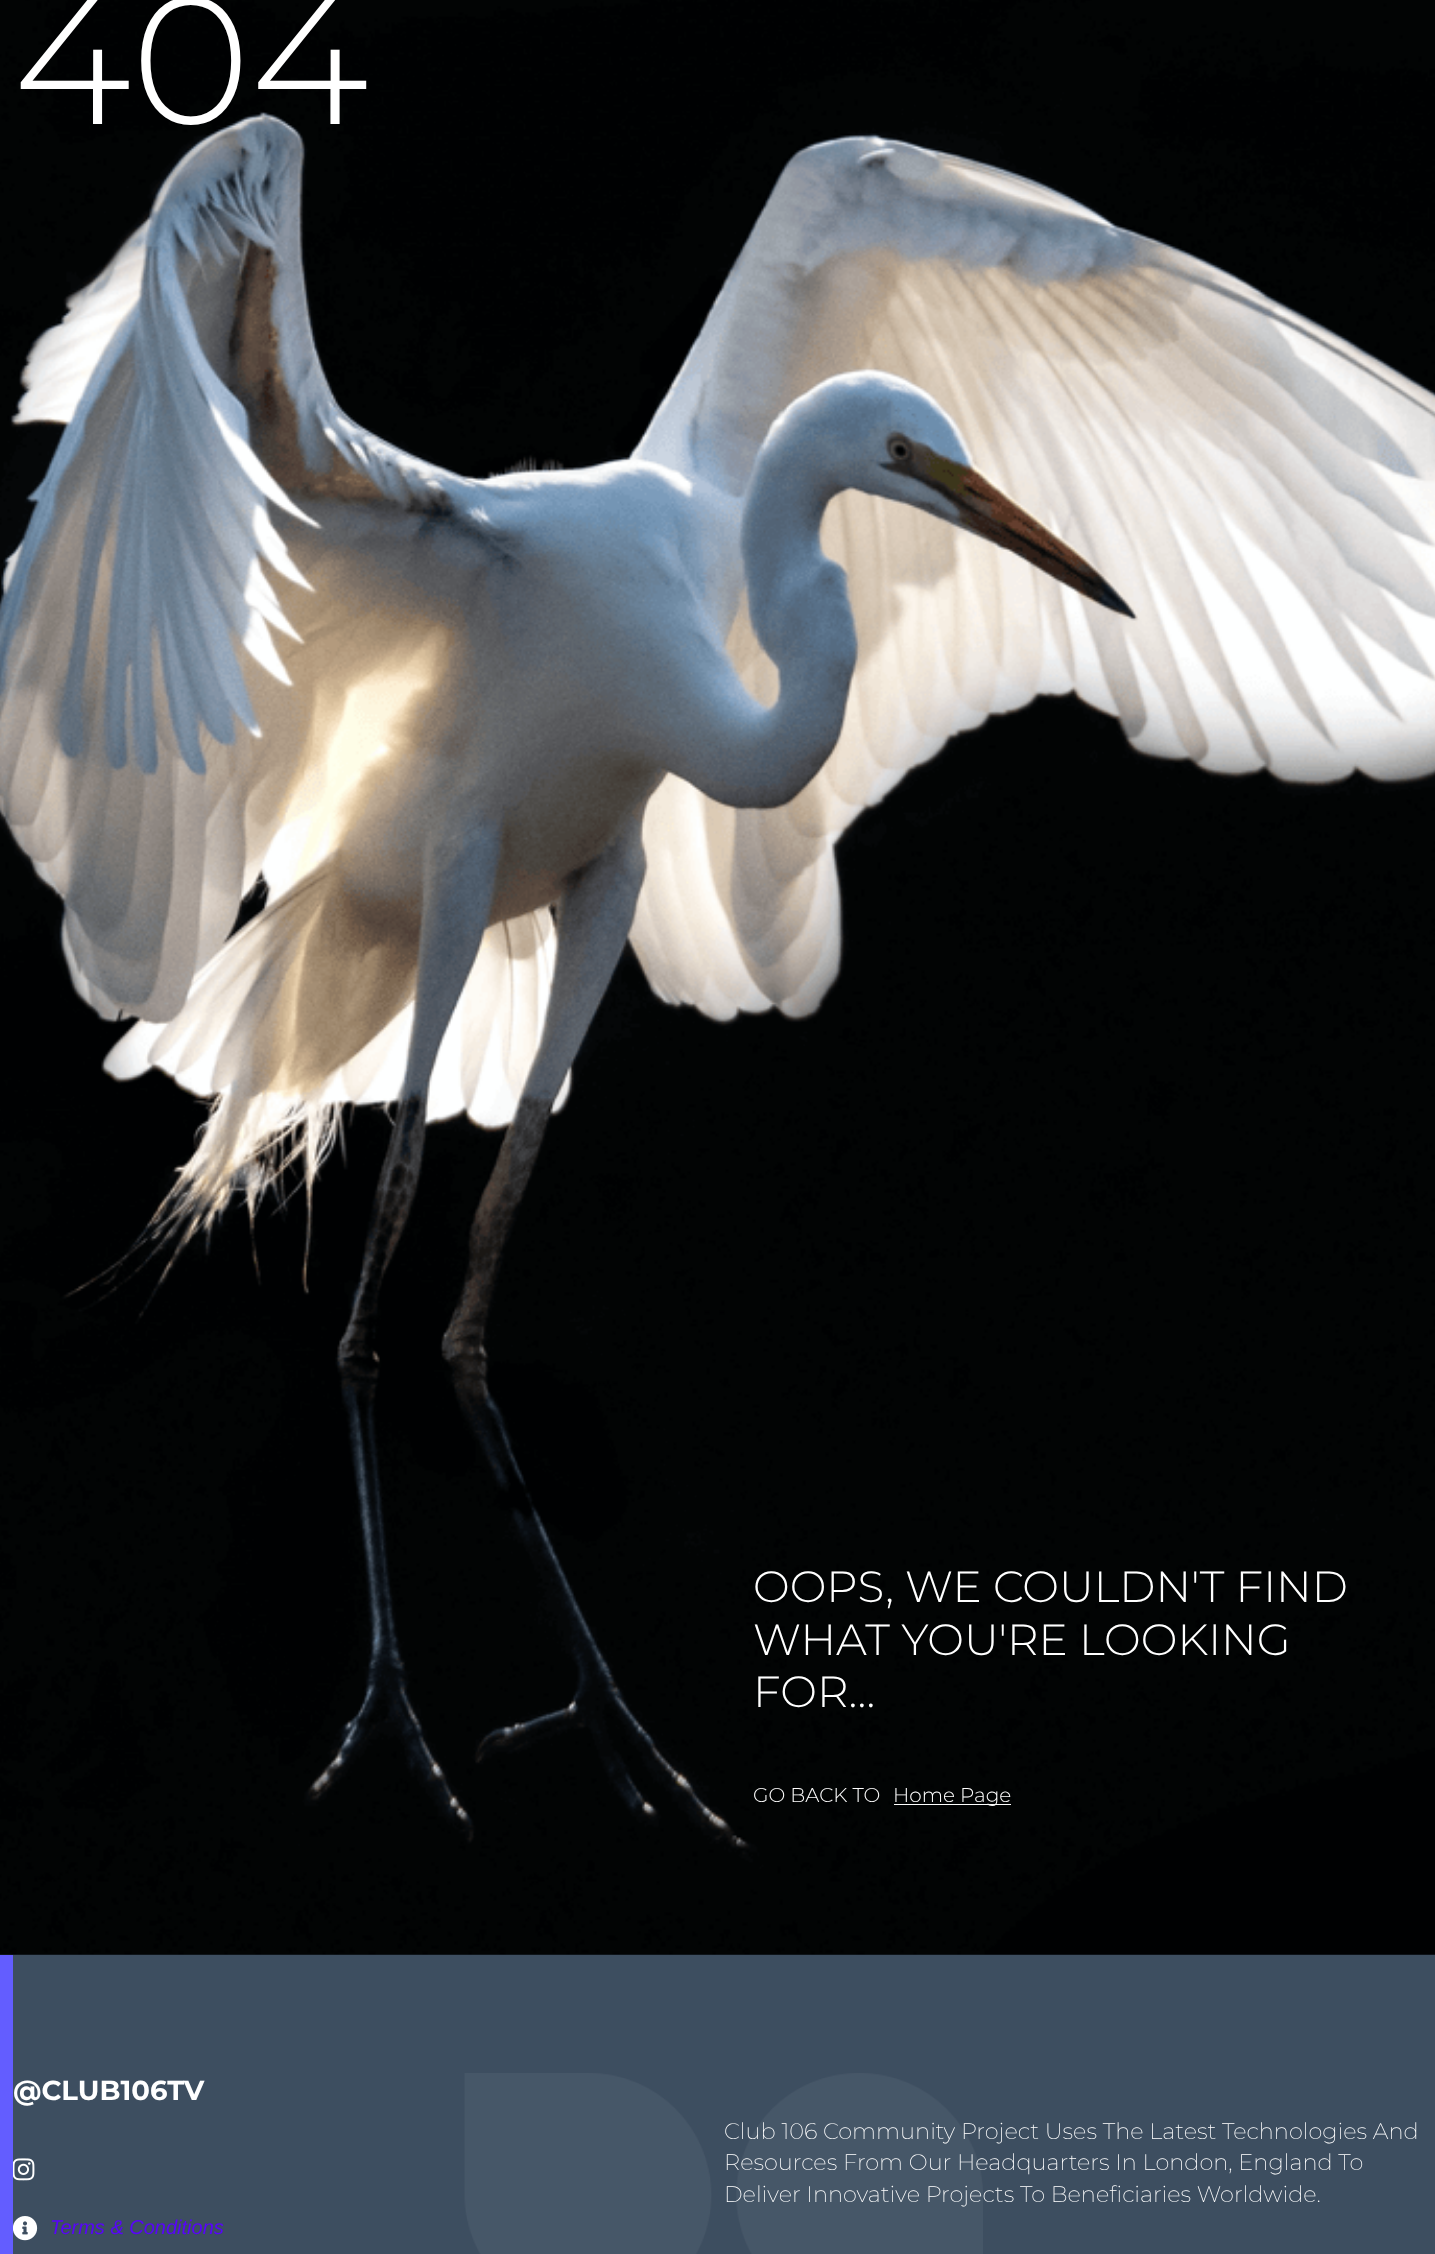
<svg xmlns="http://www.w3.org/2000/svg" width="1435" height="2254">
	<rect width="100%" height="100%" fill="#1B252F" />
	<image x="0" y="0" width="1435" height="1955" href="assets/img1.png" />
	<text x="13" y="124" font-family="Montserrat" font-size="181" font-weight="300" fill="#FFFFFF">404</text>
	<g font-family="Montserrat" font-size="43.75" font-weight="300" fill="#FFFFFF">
		<text x="753" y="1602">OOPS, WE COULDN'T FIND</text>
		<text x="753" y="1655">WHAT YOU'RE LOOKING</text>
		<text x="753" y="1707">FOR…</text>
	</g>
	<text x="753" y="1802" font-family="Montserrat" font-size="20" font-weight="300" fill="#FFFFFF">GO BACK TO</text>
	<rect x="894" y="1804" width="117" height="1" fill="#FFFFFF" />
	<text x="893" y="1802" font-family="Montserrat" font-size="20" font-weight="300" fill="#FFFFFF">Home Page</text>
	<rect x="13" y="1955" width="1422" height="299" fill="#3D4E60" />
	<rect x="0" y="1955" width="13" height="299" fill="#635DFF" />
	<image x="464" y="2073" width="519" height="181" href="assets/img2.png" />
	<text x="13" y="2100" font-family="Montserrat" font-size="27.5" font-weight="700" fill="#FFFFFF">@CLUB106TV</text>
	<image x="13" y="2158" width="22" height="23" href="assets/img3.png" />
	<image x="13" y="2216" width="25" height="25" href="assets/img4.png" />
	<text x="50" y="2234" font-family="Liberation Sans" font-size="20" font-style="italic" fill="#5804FA">Terms &amp; Conditions</text>
	<g font-family="Montserrat" font-size="22.5" font-weight="200" fill="#FFFFFF">
		<text x="724" y="2139">Club 106 Community Project Uses The Latest Technologies And</text>
		<text x="724" y="2170">Resources From Our Headquarters In London, England To</text>
		<text x="724" y="2202">Deliver Innovative Projects To Beneficiaries Worldwide.</text>
	</g>
</svg>
